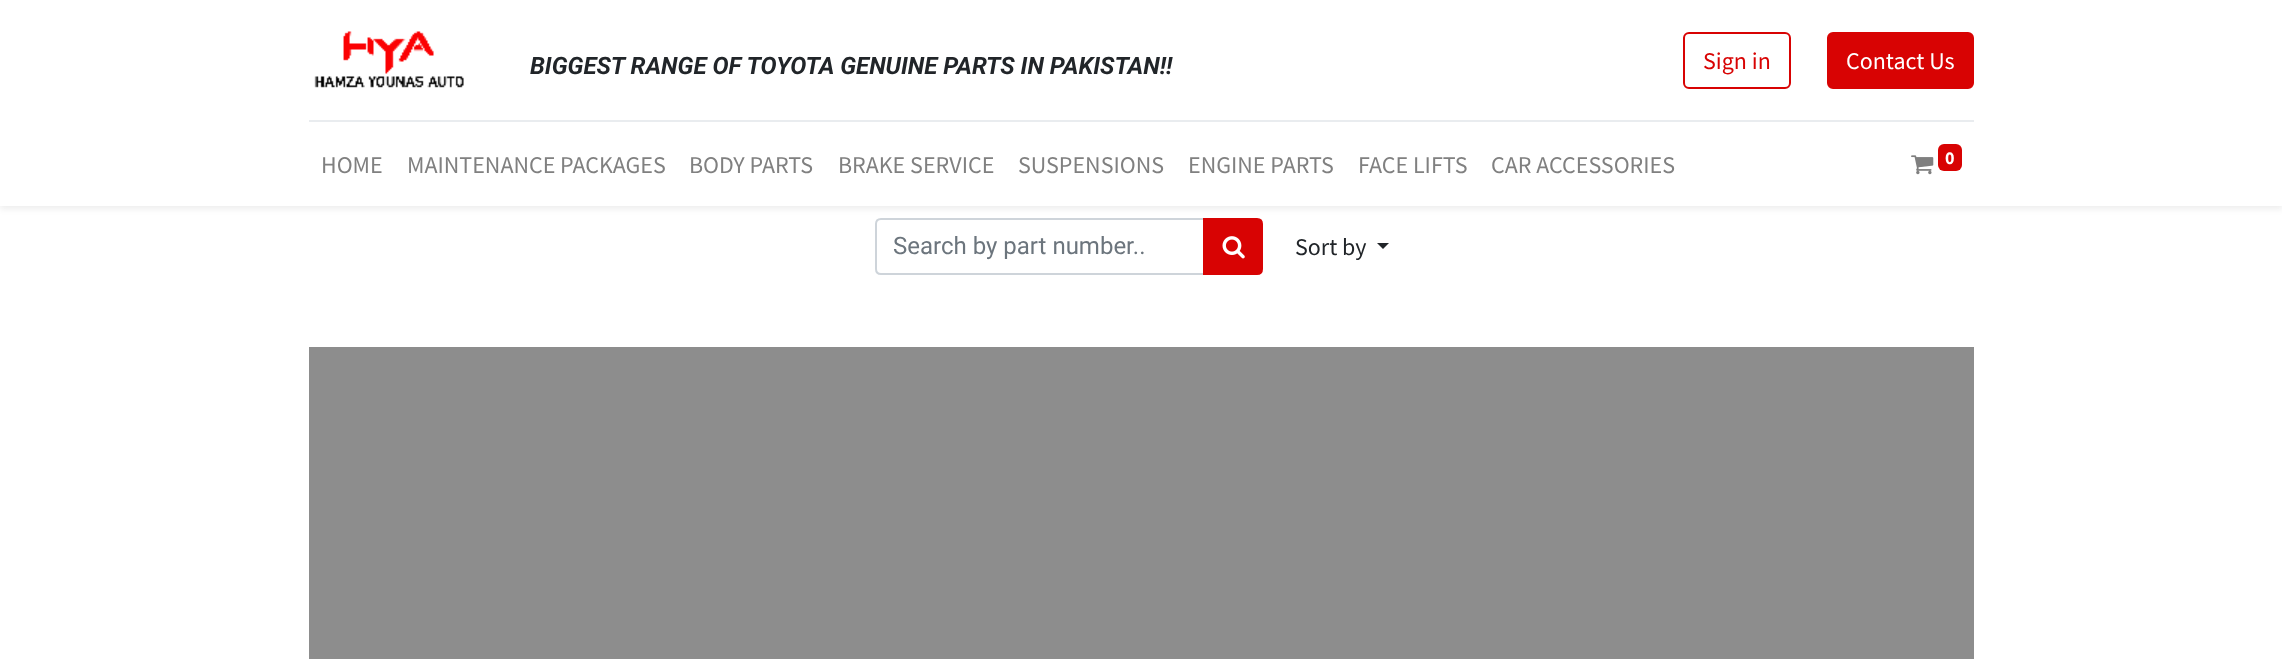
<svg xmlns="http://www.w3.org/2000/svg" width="2282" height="659">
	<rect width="100%" height="100%" fill="#FFFFFF" />
	<path d="M881 219H1204V274H881C878 274 876 272 876 269V224C876 221 878 219 881 219Z" fill="none" stroke="#CED4DA" stroke-width="2" />
	<path d="M1204 219H1257C1260 219 1262 221 1262 224V269C1262 272 1260 274 1257 274H1204Z" fill="#D80303" stroke="#D80303" stroke-width="2" />
	<rect x="0" y="3" width="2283" height="206" fill="#000000" fill-opacity="0.07" filter="blur(3px)" />
	<rect x="0" y="0" width="2282" height="206" fill="#FFFFFF" />
	<image x="314" y="31" width="150" height="57" href="assets/img1.png" />
	<text x="530" y="74" font-family="Roboto" font-size="24" font-weight="700" font-style="italic" fill="#212529">BIGGEST RANGE OF TOYOTA GENUINE PARTS IN PAKISTAN!!</text>
	<rect x="1684" y="33" width="106" height="55" rx="5" fill="none" stroke="#D80303" stroke-width="2" />
	<text x="1703" y="69" font-family="Source Sans Pro" font-size="24" fill="#D80303">Sign in</text>
	<rect x="1828" y="33" width="145" height="55" rx="5" fill="#D80303" stroke="#D80303" stroke-width="2" />
	<text x="1846" y="69" font-family="Source Sans Pro" font-size="24" fill="#FFFFFF">Contact Us</text>
	<rect x="309" y="120" width="1665" height="2" fill="#E9ECEF" />
	<g font-family="Source Sans Pro" font-size="24" fill="#808080">
		<text x="321" y="173">HOME</text>
		<text x="407" y="173">MAINTENANCE PACKAGES</text>
		<text x="689" y="173">BODY PARTS</text>
		<text x="838" y="173">BRAKE SERVICE</text>
		<text x="1018" y="173">SUSPENSIONS</text>
		<text x="1188" y="173">ENGINE PARTS</text>
		<text x="1358" y="173">FACE LIFTS</text>
		<text x="1491" y="173">CAR ACCESSORIES</text>
	</g>
	<image x="1911" y="155" width="23" height="20" href="assets/img2.png" />
	<rect x="1938" y="144" width="24" height="27" rx="6" fill="#D80303" />
	<text x="1945" y="164" font-family="Source Sans Pro" font-size="18" font-weight="700" fill="#FFFFFF">0</text>
	<text x="893" y="254" font-family="Roboto" font-size="24" fill="#6C757D">Search by part number..</text>
	<image x="1222" y="236" width="23" height="23" href="assets/img3.png" />
	<text x="1295" y="255" font-family="Source Sans Pro" font-size="24" fill="#212529">Sort by</text>
	<path d="M1377 243H1389L1383 249Z" fill="#212529" />
	<rect x="309" y="347" width="1665" height="312" fill="#8D8D8D" />
</svg>
